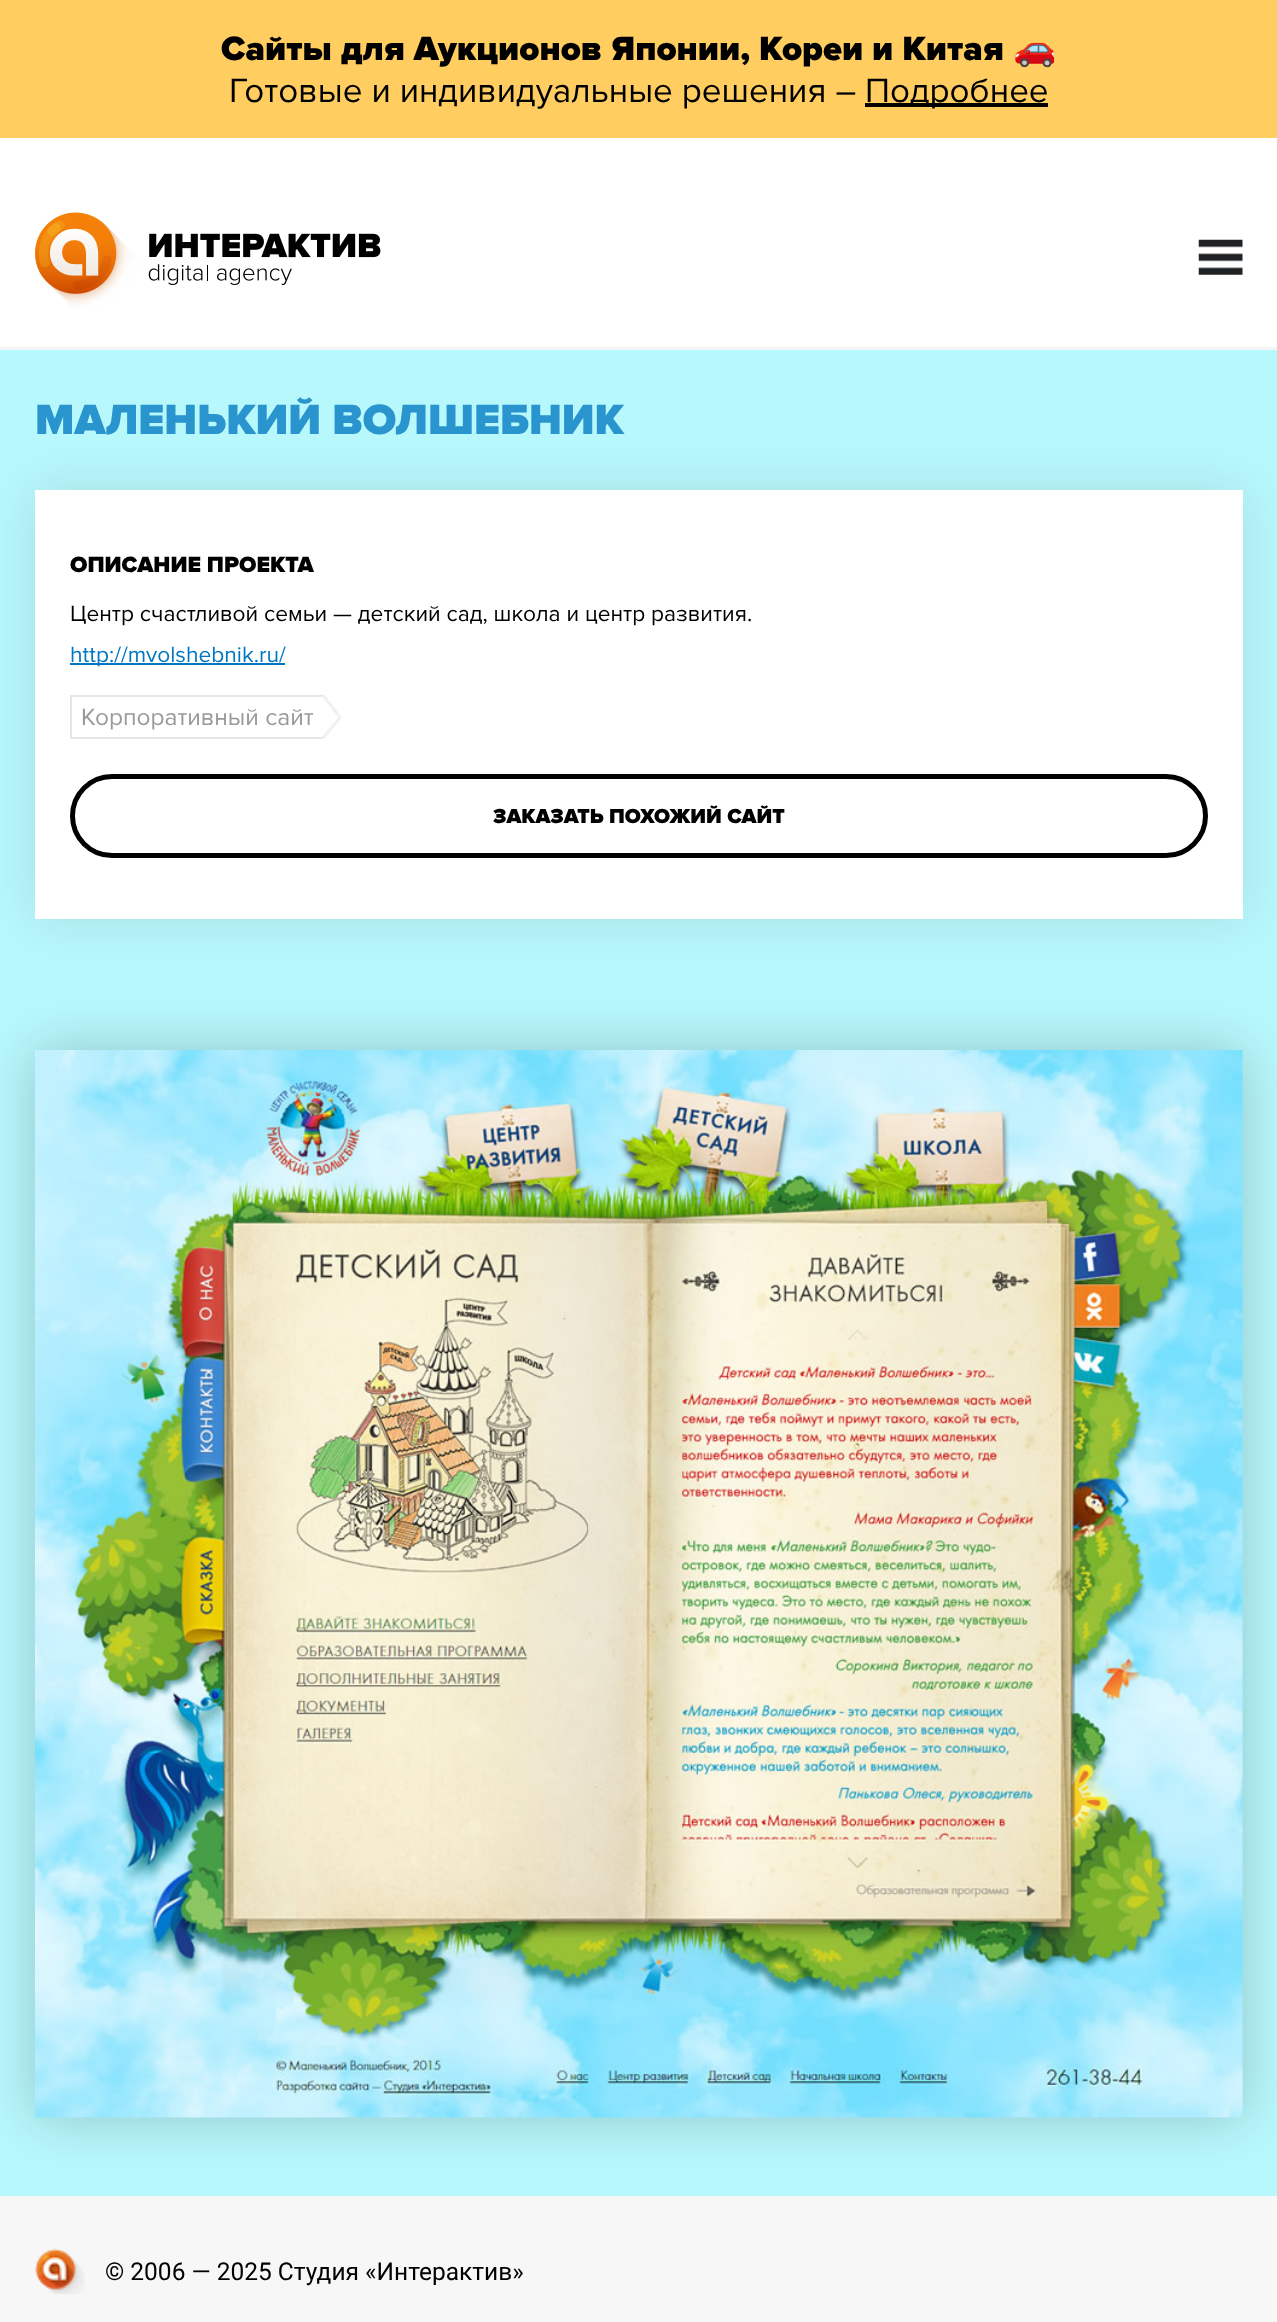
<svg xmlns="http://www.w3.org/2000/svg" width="1277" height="2322">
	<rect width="100%" height="100%" fill="#FFFFFF" />
	<rect x="0" y="0" width="1277" height="138" fill="#FFCD60" />
	<text x="221" y="60" font-family="Proxima Nova" font-size="35" font-weight="900" fill="#000000">Сайты для Аукционов Японии, Кореи и Китая</text>
	<text x="1013" y="60" font-family="Noto Color Emoji" font-size="35" font-weight="700" fill="#000000">🚗</text>
	<text x="229" y="102" font-family="Proxima Nova" font-size="35" fill="#000000">Готовые и индивидуальные решения –</text>
	<rect x="865" y="103" width="183" height="4" fill="#000000" />
	<text x="865" y="102" font-family="Proxima Nova" font-size="35" fill="#000000">Подробнее</text>
	<rect x="0" y="347" width="1277" height="3" fill="#F4F4F4" />
	<image x="35" y="212" width="346" height="96" href="assets/img1.png" />
	<image x="1198" y="239" width="45" height="36" href="assets/img2.png" />
	<rect x="0" y="350" width="1277" height="1846" fill="#B7F8FC" />
	<rect x="35" y="490" width="1208" height="429" fill="#000000" fill-opacity="0.1" filter="blur(26px)" />
	<text x="35" y="434" font-family="Proxima Nova" font-size="43.75" font-weight="900" fill="#2994CD">МАЛЕНЬКИЙ ВОЛШЕБНИК</text>
	<rect x="35" y="490" width="1208" height="429" fill="#FFFFFF" />
	<text x="70" y="572" font-family="Proxima Nova" font-size="22.75" font-weight="900" fill="#000000">ОПИСАНИЕ ПРОЕКТА</text>
	<text x="70" y="621" font-family="Proxima Nova" font-size="22.75" fill="#000000">Центр счастливой семьи — детский сад, школа и центр развития.</text>
	<rect x="70" y="663" width="215" height="2" fill="#0077C0" />
	<text x="70" y="662" font-family="Proxima Nova" font-size="22.75" fill="#0077C0">http://mvolshebnik.ru/</text>
	<rect x="70" y="695" width="252" height="2" fill="#E6E6E6" />
	<rect x="70" y="737" width="252" height="2" fill="#E6E6E6" />
	<rect x="70" y="695" width="2" height="44" fill="#E6E6E6" />
	<text x="81" y="725" font-family="Proxima Nova" font-size="24.5" fill="#999999">Корпоративный сайт</text>
	<image x="322" y="694" width="19" height="45" href="assets/img3.png" />
	<rect x="72.5" y="776.5" width="1133" height="79" rx="39.5" fill="none" stroke="#000000" stroke-width="5" />
	<text x="493" y="823" font-family="Proxima Nova" font-size="21" font-weight="900" fill="#000000">ЗАКАЗАТЬ ПОХОЖИЙ САЙТ</text>
	<rect x="0" y="2196" width="1277" height="126" fill="#F7F7F7" />
	<rect x="35" y="1050" width="1208" height="1068" fill="#000000" fill-opacity="0.2" filter="blur(26px)" />
	<image x="35" y="1050" width="1208" height="1068" href="assets/img4.png" />
	<image x="35" y="2248" width="50" height="46" href="assets/img5.png" />
	<text x="105" y="2280" font-family="Roboto" font-size="24.5" fill="#000000">© 2006 — 2025 Студия «Интерактив»</text>
</svg>
